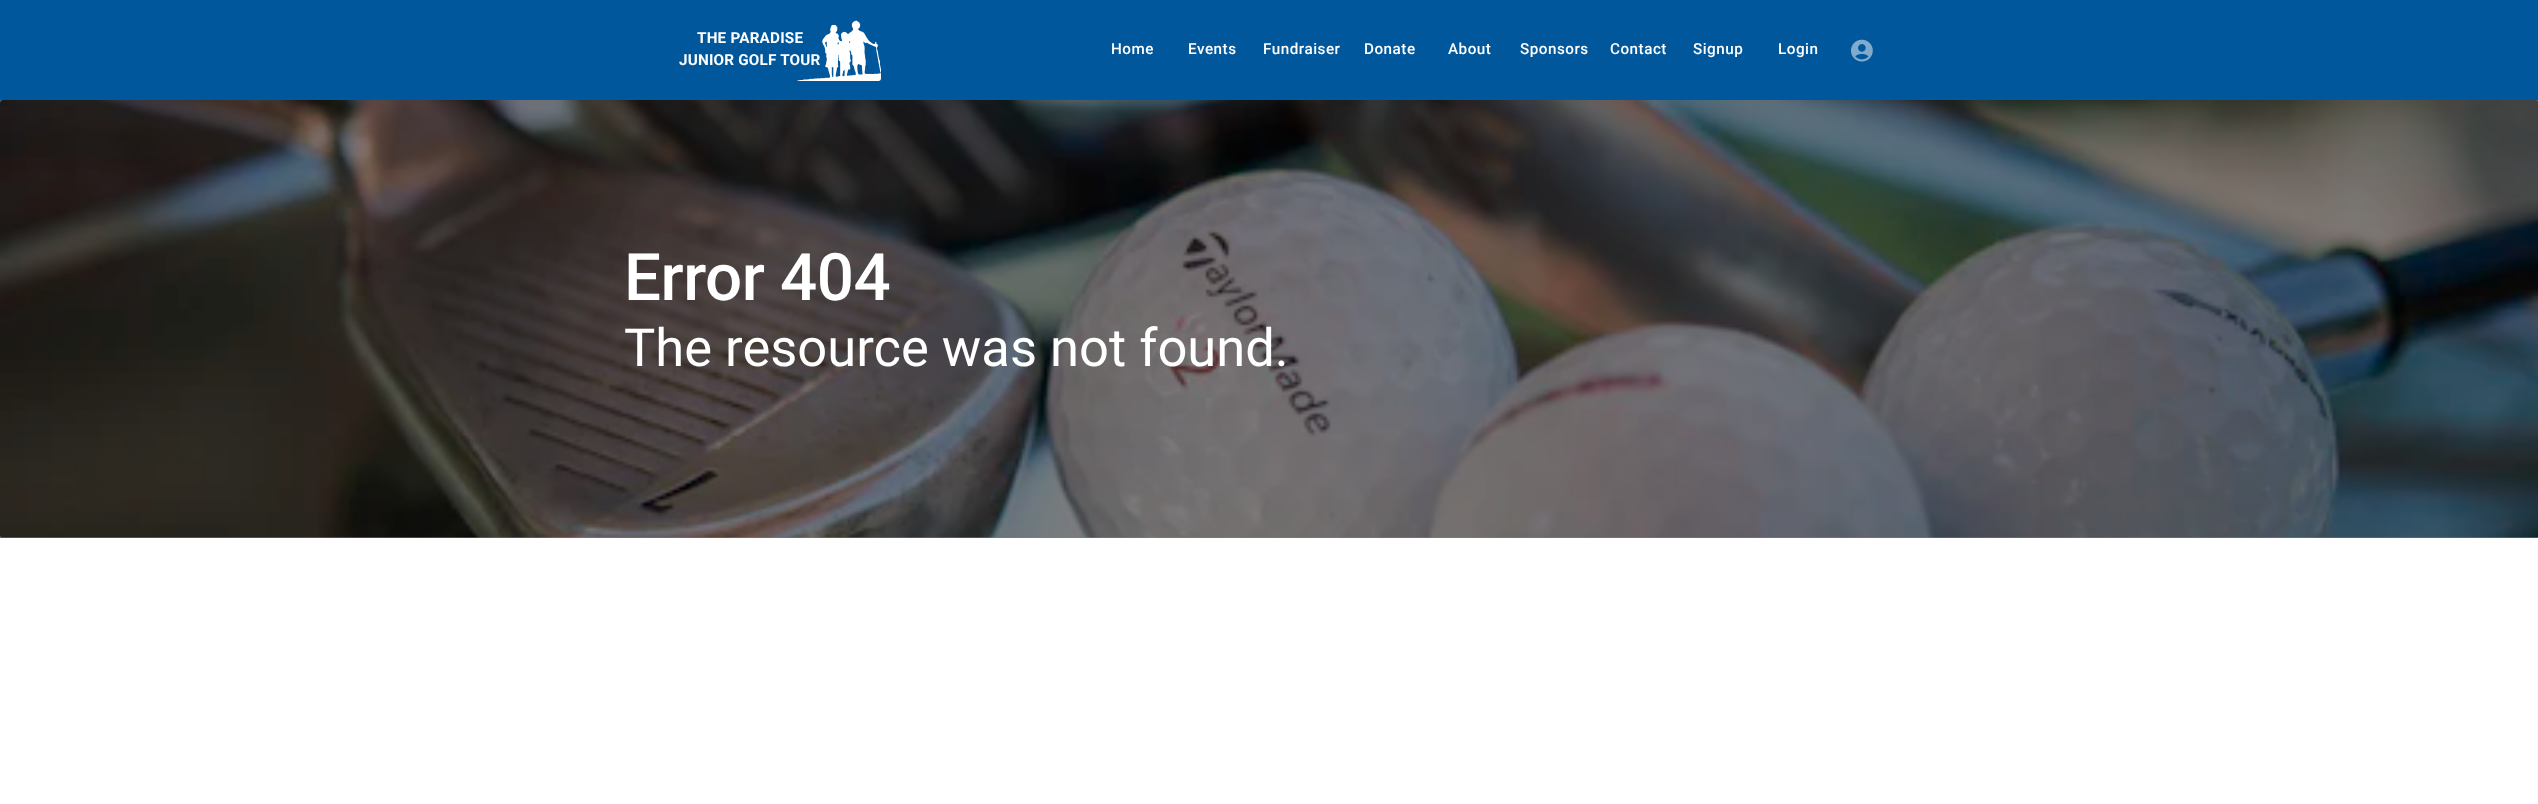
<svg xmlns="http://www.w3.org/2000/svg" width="2538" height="804">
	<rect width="100%" height="100%" fill="#FFFFFF" />
	<rect x="0" y="0" width="2538" height="538" fill="#01579B" />
	<image x="797" y="20" width="84" height="61" href="assets/img1.png" />
	<g font-family="Roboto" font-size="15.25" font-weight="700" letter-spacing="0.2" fill="#FFFFFF">
		<text x="697" y="43">THE PARADISE</text>
		<text x="679" y="65">JUNIOR GOLF TOUR</text>
	</g>
	<g font-family="Roboto" font-size="15.25" font-weight="500" letter-spacing="0.5" fill="#FFFFFF">
		<text x="1111" y="54">Home</text>
		<text x="1188" y="54">Events</text>
		<text x="1263" y="54">Fundraiser</text>
		<text x="1364" y="54">Donate</text>
		<text x="1448" y="54">About</text>
		<text x="1520" y="54">Sponsors</text>
		<text x="1610" y="54">Contact</text>
		<text x="1693" y="54">Signup</text>
		<text x="1778" y="54">Login</text>
	</g>
	<image x="1851" y="39" width="22" height="23" href="assets/img2.png" />
	<rect x="0" y="100" width="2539" height="438" rx="2.5" fill="#FFFFFF" />
	<image x="0" y="100" width="2538" height="438" href="assets/img3.png" />
	<rect x="0" y="100" width="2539" height="438" rx="2.5" fill="#000000" fill-opacity="0.5" />
	<text x="624" y="300" font-family="Roboto" font-size="65.5" font-weight="500" letter-spacing="-0.5" fill="#FFFFFF">Error 404</text>
	<text x="624" y="366" font-family="Roboto" font-size="52.5" fill="#FFFFFF">The resource was not found.</text>
</svg>
